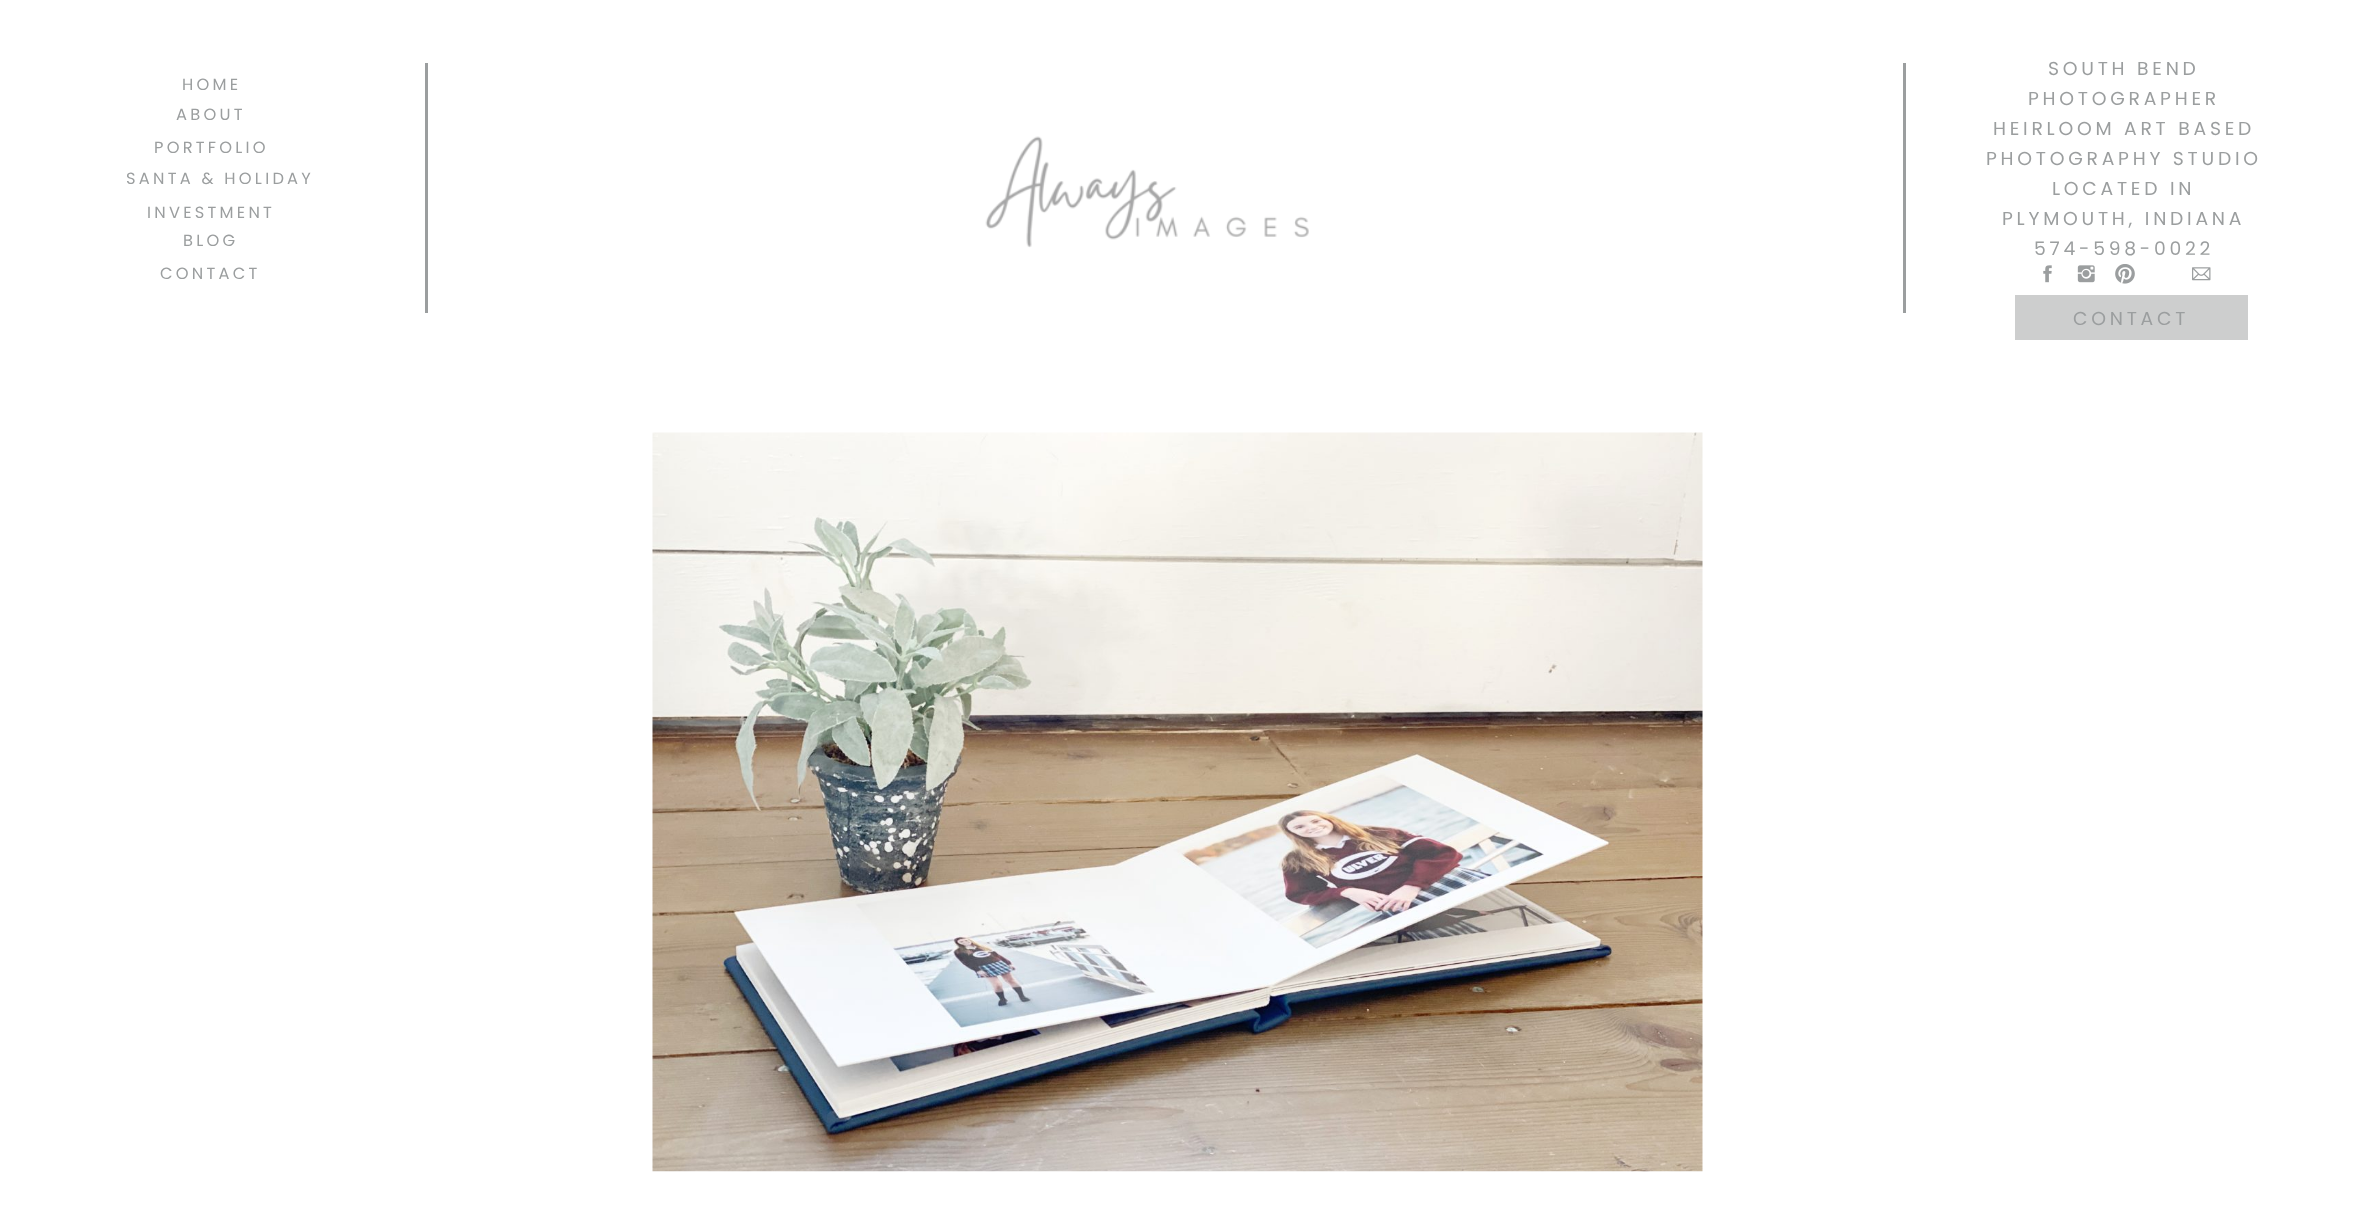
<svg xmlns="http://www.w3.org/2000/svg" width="2354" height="1224">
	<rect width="100%" height="100%" fill="#FFFFFF" />
	<text x="182" y="90" font-family="Poppins" font-size="16.25" letter-spacing="3.25" fill="#9B9E9F">HOME</text>
	<rect x="425" y="63" width="3" height="250" fill="#9B9E9F" />
	<rect x="1903" y="63" width="3" height="250" fill="#9B9E9F" />
	<g font-family="Poppins" font-size="18.75" letter-spacing="3.75" fill="#9B9E9F">
		<text x="2048" y="75">SOUTH BEND</text>
		<text x="2028" y="105">PHOTOGRAPHER</text>
		<text x="1993" y="135">HEIRLOOM ART BASED</text>
		<text x="1986" y="165">PHOTOGRAPHY STUDIO</text>
		<text x="2052" y="195">LOCATED IN</text>
		<text x="2002" y="225">PLYMOUTH, INDIANA</text>
		<text x="2034" y="255">574-598-0022</text>
	</g>
	<g font-family="Poppins" font-size="16.25" letter-spacing="3.25" fill="#9B9E9F">
		<text x="176" y="120">ABOUT</text>
		<text x="154" y="153">PORTFOLIO</text>
	</g>
	<image x="985" y="136" width="324" height="112" href="assets/img1.png" />
	<g font-family="Poppins" font-size="16.25" letter-spacing="3.25" fill="#9B9E9F">
		<text x="126" y="184">SANTA &amp; HOLIDAY</text>
		<text x="147" y="218">INVESTMENT</text>
		<text x="183" y="246">BLOG</text>
		<text x="160" y="279">CONTACT</text>
	</g>
	<image x="2043" y="265" width="9" height="18" href="assets/img2.png" />
	<image x="2077" y="265" width="18" height="18" href="assets/img3.png" />
	<image x="2115" y="264" width="20" height="20" href="assets/img4.png" />
	<image x="2192" y="267" width="19" height="14" href="assets/img5.png" />
	<rect x="2015" y="295" width="233" height="45" fill="#CDCECE" />
	<text x="2073" y="325" font-family="Poppins" font-size="18.75" letter-spacing="3.75" fill="#9B9E9F">CONTACT</text>
	<image x="652" y="432" width="1051" height="740" href="assets/img6.png" />
</svg>
